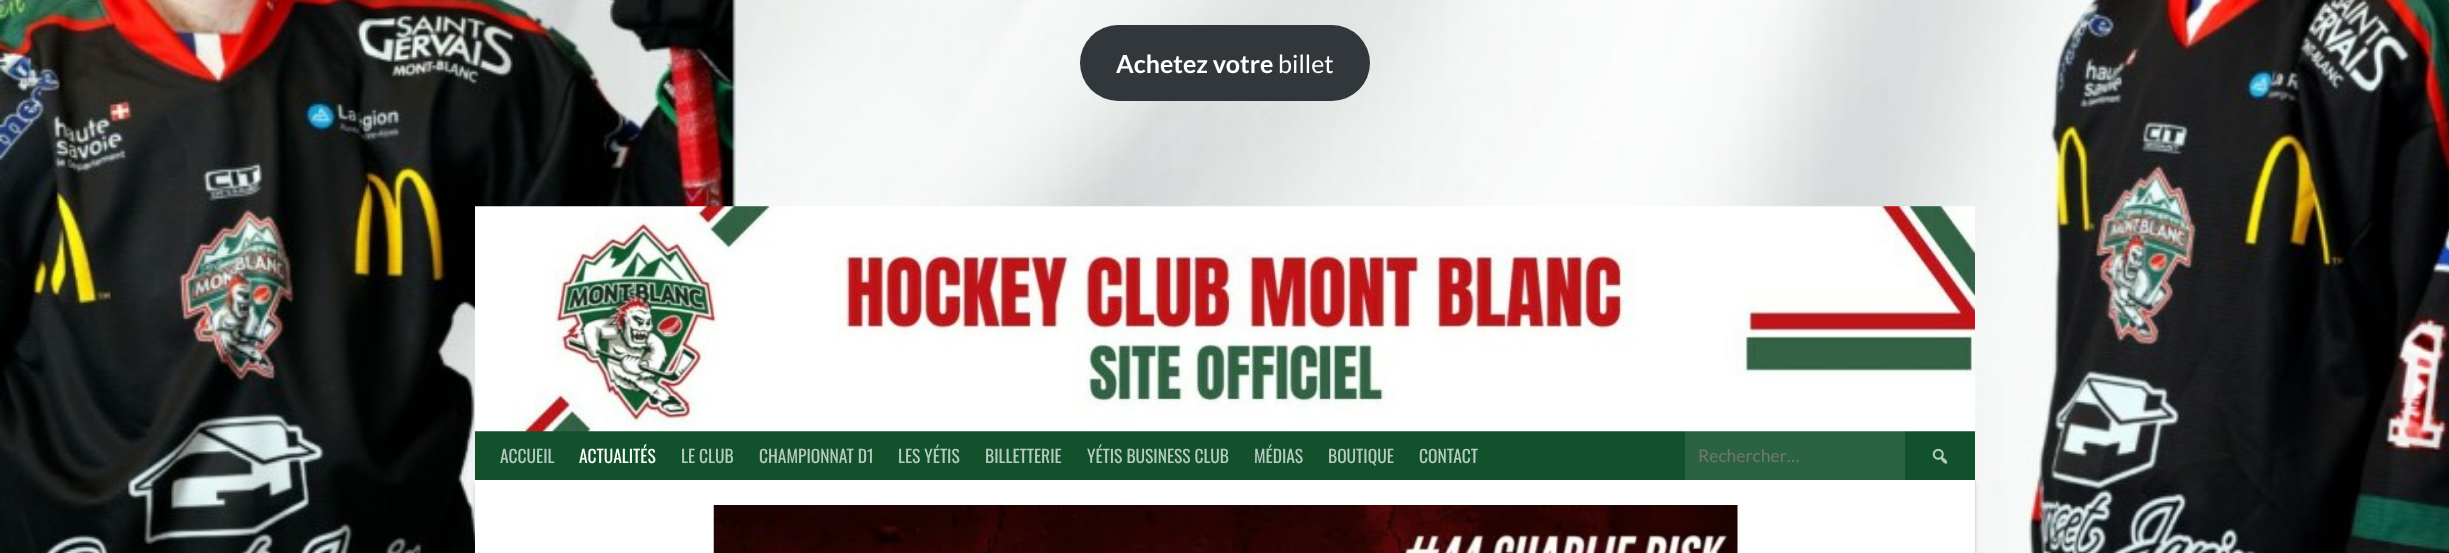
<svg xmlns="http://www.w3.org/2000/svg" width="2449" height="553">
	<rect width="100%" height="100%" fill="#FFFFFF" />
	<image x="0" y="0" width="2449" height="553" href="assets/img1.png" />
	<rect x="1080" y="25" width="290" height="76" rx="38" fill="#32373C" />
	<text x="1116" y="73" font-family="Lato" font-size="25" font-weight="700" fill="#FFFFFF">Achetez votre</text>
	<text x="1278" y="73" font-family="Lato" font-size="25" fill="#FFFFFF">billet</text>
	<rect x="475" y="484" width="1500" height="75" fill="#000000" fill-opacity="0.2" filter="blur(2px)" />
	<rect x="475" y="431" width="1500" height="49" fill="#11522D" />
	<rect x="1685" y="431" width="220" height="49" fill="#296342" />
	<image x="475" y="206" width="1500" height="226" href="assets/img2.png" />
	<text x="500" y="463" font-family="Oswald" font-size="17.5" fill="#B8CBC0">ACCUEIL</text>
	<text x="579" y="463" font-family="Oswald" font-size="17.5" fill="#FFFFFF">ACTUALITÉS</text>
	<g font-family="Oswald" font-size="17.5" fill="#B8CBC0">
		<text x="681" y="463">LE CLUB</text>
		<text x="759" y="463">CHAMPIONNAT D1</text>
		<text x="898" y="463">LES YÉTIS</text>
		<text x="985" y="463">BILLETTERIE</text>
		<text x="1087" y="463">YÉTIS BUSINESS CLUB</text>
		<text x="1254" y="463">MÉDIAS</text>
		<text x="1328" y="463">BOUTIQUE</text>
		<text x="1419" y="463">CONTACT</text>
	</g>
	<text x="1698" y="462" font-family="Lato" font-size="17.5" fill="#757575">Rechercher…</text>
	<image x="1932" y="448" width="16" height="16" href="assets/img3.png" />
	<rect x="475" y="480" width="1500" height="73" fill="#FFFFFF" />
	<rect x="1975" y="480" width="1" height="73" fill="#E0E0E0" />
	<image x="713" y="505" width="1025" height="48" href="assets/img4.png" />
</svg>
